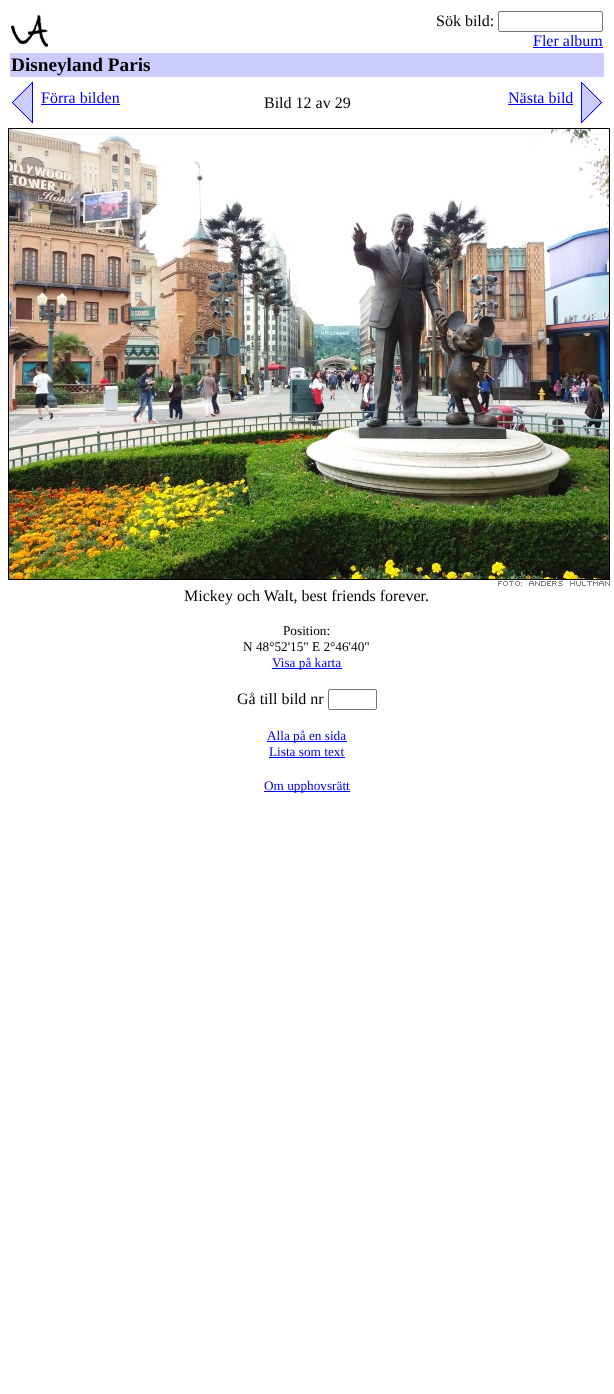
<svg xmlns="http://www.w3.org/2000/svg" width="614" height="1394">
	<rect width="100%" height="100%" fill="#FFFFFF" />
	<image x="11" y="15" width="37" height="32" href="assets/img1.png" />
	<text x="436" y="26" font-family="Liberation Serif" font-size="16" fill="#000000">Sök bild:</text>
	<rect x="498.5" y="11.5" width="104" height="20" rx="1.5" fill="none" stroke="#767676" />
	<text x="533" y="46" font-family="Liberation Serif" font-size="16" fill="#0000EE">Fler album</text>
	<rect x="533" y="47" width="70" height="1" fill="#0000EE" />
	<rect x="10" y="53" width="594" height="24" fill="#CCCCFF" />
	<text x="11" y="71" font-family="Liberation Serif" font-size="19.25" font-weight="700" fill="#000000">Disneyland Paris</text>
	<image x="11" y="81" width="22" height="43" href="assets/img2.png" />
	<text x="41" y="103" font-family="Liberation Serif" font-size="16" fill="#0000EE">Förra bilden</text>
	<rect x="41" y="104" width="79" height="1" fill="#0000EE" />
	<text x="264" y="108" font-family="Liberation Serif" font-size="16" fill="#000000">Bild 12 av 29</text>
	<text x="508" y="103" font-family="Liberation Serif" font-size="16" fill="#0000EE">Nästa bild</text>
	<rect x="508" y="104" width="65" height="1" fill="#0000EE" />
	<image x="581" y="81" width="22" height="43" href="assets/img3.png" />
	<rect x="8.5" y="128.5" width="601" height="451" fill="none" stroke="#000000" />
	<image x="9" y="129" width="600" height="450" href="assets/img4.png" />
	<image x="498" y="581" width="112" height="5" href="assets/img5.png" />
	<text x="184" y="601" font-family="Liberation Serif" font-size="16" fill="#000000">Mickey och Walt, best friends forever.</text>
	<g font-family="Liberation Serif" font-size="13.25" fill="#000000">
		<text x="283" y="635">Position:</text>
		<text x="243" y="651">N 48°52'15" E 2°46'40"</text>
	</g>
	<rect x="272" y="668" width="70" height="1" fill="#0000EE" />
	<text x="272" y="667" font-family="Liberation Serif" font-size="13.25" fill="#0000EE">Visa på karta</text>
	<text x="237" y="704" font-family="Liberation Serif" font-size="16" fill="#000000">Gå till bild nr</text>
	<rect x="328.5" y="689.5" width="48" height="20" rx="1.5" fill="none" stroke="#767676" />
	<rect x="267" y="741" width="80" height="1" fill="#0000EE" />
	<g font-family="Liberation Serif" font-size="13.25" fill="#0000EE">
		<text x="267" y="740">Alla på en sida</text>
		<text x="269" y="756">Lista som text</text>
	</g>
	<rect x="269" y="757" width="76" height="1" fill="#0000EE" />
	<rect x="264" y="791" width="86" height="1" fill="#0000EE" />
	<text x="264" y="790" font-family="Liberation Serif" font-size="13.25" fill="#0000EE">Om upphovsrätt</text>
</svg>
